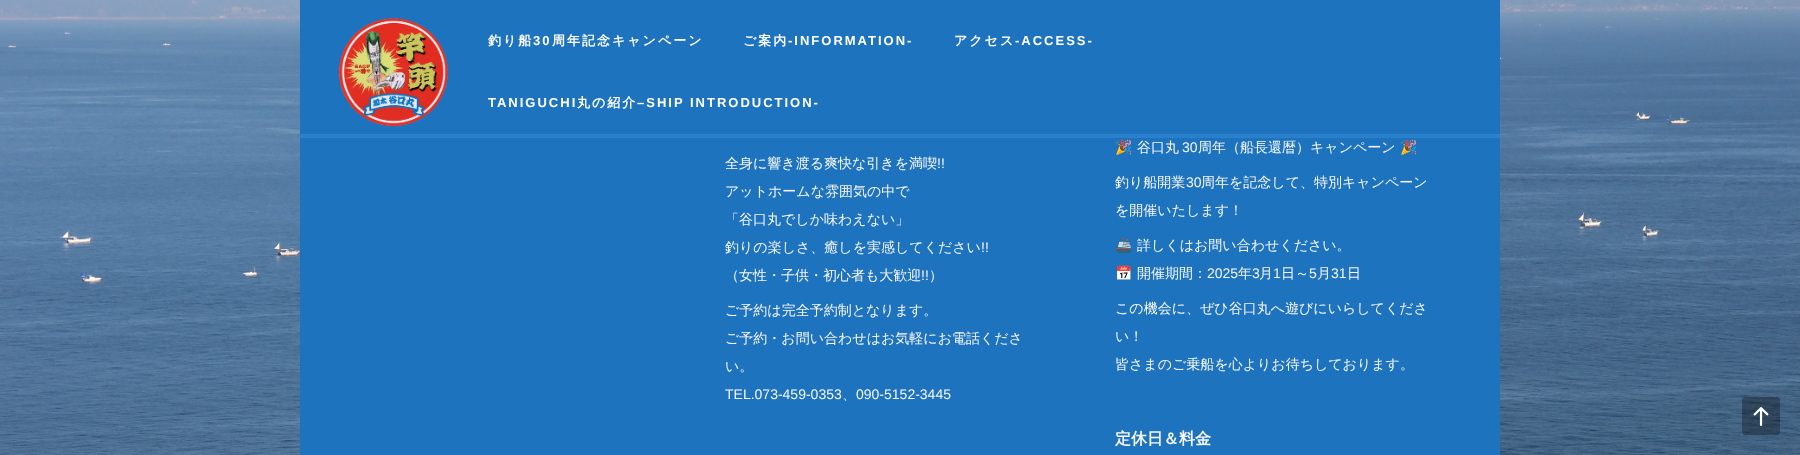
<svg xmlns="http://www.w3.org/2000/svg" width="1800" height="455">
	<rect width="100%" height="100%" fill="#FFFFFF" />
	<image x="0" y="0" width="1800" height="455" href="assets/img1.png" />
	<rect x="300" y="0" width="1200" height="134" fill="#1E73BE" />
	<rect x="300" y="134" width="1200" height="4" fill="#2B80CB" />
	<image x="339" y="17" width="109" height="110" href="assets/img2.png" />
	<text x="488" y="45" font-family="WenQuanYi Zen Hei" font-size="13" font-weight="700" letter-spacing="2" fill="#FFFFFF">釣り船</text>
	<text x="533" y="45" font-family="Liberation Sans" font-size="13" font-weight="700" letter-spacing="2" fill="#FFFFFF">30</text>
	<g font-family="WenQuanYi Zen Hei" font-size="13" font-weight="700" letter-spacing="2" fill="#FFFFFF">
		<text x="552" y="45">周年記念キャンペーン</text>
		<text x="743" y="45">ご案内</text>
	</g>
	<text x="788" y="45" font-family="Liberation Sans" font-size="13" font-weight="700" letter-spacing="2" fill="#FFFFFF">-INFORMATION-</text>
	<text x="954" y="45" font-family="WenQuanYi Zen Hei" font-size="13" font-weight="700" letter-spacing="2" fill="#FFFFFF">アクセス</text>
	<g font-family="Liberation Sans" font-size="13" font-weight="700" letter-spacing="2" fill="#FFFFFF">
		<text x="1015" y="45">-ACCESS-</text>
		<text x="488" y="107">TANIGUCHI</text>
	</g>
	<text x="577" y="107" font-family="WenQuanYi Zen Hei" font-size="13" font-weight="700" letter-spacing="2" fill="#FFFFFF">丸の紹介</text>
	<text x="637" y="107" font-family="Liberation Sans" font-size="13" font-weight="700" letter-spacing="2" fill="#FFFFFF">–SHIP INTRODUCTION-</text>
	<rect x="300" y="138" width="1200" height="317" fill="#1E73BE" />
	<text x="725" y="168" font-family="WenQuanYi Zen Hei" font-size="14" font-weight="500" fill="#F7F7F7">全身に響き渡る爽快な引きを満喫</text>
	<text x="937" y="168" font-family="Liberation Sans" font-size="14" fill="#F7F7F7">!!</text>
	<g font-family="WenQuanYi Zen Hei" font-size="14" font-weight="500" fill="#F7F7F7">
		<text x="725" y="196">アットホームな雰囲気の中で</text>
		<text x="725" y="224">「谷口丸でしか味わえない」</text>
		<text x="725" y="252">釣りの楽しさ、癒しを実感してください</text>
	</g>
	<text x="981" y="252" font-family="Liberation Sans" font-size="14" fill="#F7F7F7">!!</text>
	<text x="725" y="280" font-family="WenQuanYi Zen Hei" font-size="14" font-weight="500" fill="#F7F7F7">（女性・子供・初心者も大歓迎</text>
	<text x="921" y="280" font-family="Liberation Sans" font-size="14" fill="#F7F7F7">!!</text>
	<g font-family="WenQuanYi Zen Hei" font-size="14" font-weight="500" fill="#F7F7F7">
		<text x="929" y="280">）</text>
		<text x="725" y="315">ご予約は完全予約制となります。</text>
		<text x="725" y="343">ご予約・お問い合わせはお気軽にお電話くださ</text>
		<text x="725" y="371">い。</text>
	</g>
	<text x="725" y="399" font-family="Liberation Sans" font-size="14" fill="#F7F7F7">TEL.073-459-0353</text>
	<text x="842" y="399" font-family="WenQuanYi Zen Hei" font-size="14" font-weight="500" fill="#F7F7F7">、</text>
	<text x="856" y="399" font-family="Liberation Sans" font-size="14" fill="#F7F7F7">090-5152-3445</text>
	<text x="1115" y="152" font-family="Noto Color Emoji" font-size="14" fill="#F7F7F7">🎉</text>
	<text x="1137" y="152" font-family="WenQuanYi Zen Hei" font-size="14" font-weight="500" fill="#F7F7F7">谷口丸</text>
	<text x="1182" y="152" font-family="Liberation Sans" font-size="14" fill="#F7F7F7">30</text>
	<text x="1198" y="152" font-family="WenQuanYi Zen Hei" font-size="14" font-weight="500" fill="#F7F7F7">周年（船長還暦）キャンペーン</text>
	<text x="1400" y="152" font-family="Noto Color Emoji" font-size="14" fill="#F7F7F7">🎉</text>
	<text x="1115" y="187" font-family="WenQuanYi Zen Hei" font-size="14" font-weight="500" fill="#F7F7F7">釣り船開業</text>
	<text x="1186" y="187" font-family="Liberation Sans" font-size="14" fill="#F7F7F7">30</text>
	<g font-family="WenQuanYi Zen Hei" font-size="14" font-weight="500" fill="#F7F7F7">
		<text x="1201" y="187">周年を記念して、特別キャンペーン</text>
		<text x="1115" y="215">を開催いたします！</text>
	</g>
	<text x="1115" y="250" font-family="Noto Color Emoji" font-size="14" fill="#F7F7F7">🚢</text>
	<text x="1137" y="250" font-family="WenQuanYi Zen Hei" font-size="14" font-weight="500" fill="#F7F7F7">詳しくはお問い合わせください。</text>
	<text x="1115" y="278" font-family="Noto Color Emoji" font-size="14" fill="#F7F7F7">📅</text>
	<text x="1137" y="278" font-family="WenQuanYi Zen Hei" font-size="14" font-weight="500" fill="#F7F7F7">開催期間：</text>
	<text x="1207" y="278" font-family="Liberation Sans" font-size="14" fill="#F7F7F7">2025</text>
	<text x="1238" y="278" font-family="WenQuanYi Zen Hei" font-size="14" font-weight="500" fill="#F7F7F7">年</text>
	<text x="1252" y="278" font-family="Liberation Sans" font-size="14" fill="#F7F7F7">3</text>
	<text x="1259" y="278" font-family="WenQuanYi Zen Hei" font-size="14" font-weight="500" fill="#F7F7F7">月</text>
	<text x="1273" y="278" font-family="Liberation Sans" font-size="14" fill="#F7F7F7">1</text>
	<text x="1281" y="278" font-family="WenQuanYi Zen Hei" font-size="14" font-weight="500" fill="#F7F7F7">日～</text>
	<text x="1309" y="278" font-family="Liberation Sans" font-size="14" fill="#F7F7F7">5</text>
	<text x="1317" y="278" font-family="WenQuanYi Zen Hei" font-size="14" font-weight="500" fill="#F7F7F7">月</text>
	<text x="1331" y="278" font-family="Liberation Sans" font-size="14" fill="#F7F7F7">31</text>
	<g font-family="WenQuanYi Zen Hei" font-size="14" font-weight="500" fill="#F7F7F7">
		<text x="1347" y="278">日</text>
		<text x="1115" y="313">この機会に、ぜひ谷口丸へ遊びにいらしてくださ</text>
		<text x="1115" y="341">い！</text>
		<text x="1115" y="369">皆さまのご乗船を心よりお待ちしております。</text>
	</g>
	<text x="1115" y="444" font-family="WenQuanYi Zen Hei" font-size="16" font-weight="700" fill="#F7F7F7">定休日＆料金</text>
	<rect x="1742" y="397" width="38" height="38" rx="3" fill="#000000" fill-opacity="0.3" />
	<image x="1753" y="407" width="16" height="19" href="assets/img3.png" />
</svg>
